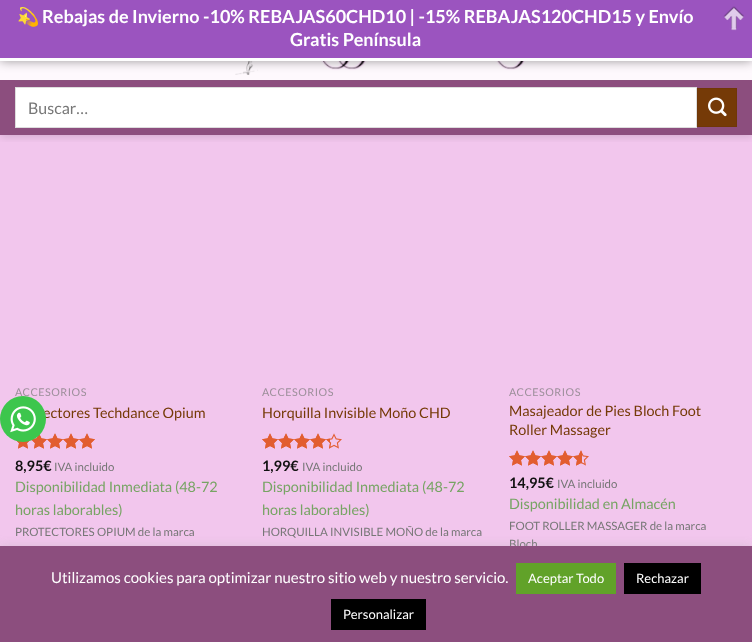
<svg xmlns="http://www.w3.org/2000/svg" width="752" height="642">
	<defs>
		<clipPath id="clip1"><rect x="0" y="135" width="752" height="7" /></clipPath>
	</defs>
	<rect width="100%" height="100%" fill="#F2C6ED" />
	<rect x="0" y="61" width="752" height="19" fill="#FEF9FD" />
	<g clip-path="url(#clip1)">
		<rect x="1" y="1" width="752" height="135" fill="#000000" fill-opacity="0.15" filter="blur(5px)" />
	</g>
	<image x="235" y="61" width="290" height="14" href="assets/img2.png" />
	<rect x="0" y="0" width="752" height="61" fill="#000000" fill-opacity="0.4" filter="blur(5.5px)" />
	<rect x="0" y="0" width="752" height="58" fill="#9B54BF" />
	<rect x="0" y="58" width="752" height="3" fill="#FFFFFF" />
	<text x="17" y="23" font-family="Noto Color Emoji" font-size="18" font-weight="700" fill="#FFFFFF">💫</text>
	<g font-family="Lato" font-size="18" font-weight="700" fill="#FFFFFF">
		<text x="42" y="23">Rebajas de Invierno -10% REBAJAS60CHD10 | -15% REBAJAS120CHD15 y Envío</text>
		<text x="290" y="46">Gratis Península</text>
	</g>
	<image x="723" y="6" width="21" height="25" href="assets/img1.png" />
	<rect x="0" y="80" width="752" height="55" fill="#8C4E7E" />
	<rect x="15" y="80" width="722" height="1" fill="#8A527D" />
	<rect x="15.5" y="87.5" width="681" height="40" fill="#FFFFFF" stroke="#DDDDDD" />
	<text x="28" y="114" font-family="Lato" font-size="16" fill="#777777">Buscar…</text>
	<rect x="697.5" y="88.5" width="39" height="38" fill="#753A07" stroke="#6F3707" />
	<image x="708" y="97" width="19" height="20" href="assets/img3.png" />
	<text x="15" y="396" font-family="Lato" font-size="10.75" letter-spacing="0.5" fill="#9C8F9A">ACCESORIOS</text>
	<text x="43" y="418" font-family="Lato" font-size="14.4" fill="#753A07">ectores Techdance Opium</text>
	<image x="16" y="433" width="79" height="16" href="assets/img4.png" />
	<image x="16" y="433" width="79" height="16" href="assets/img5.png" />
	<text x="15" y="471" font-family="Lato" font-size="14.4" font-weight="700" fill="#111111">8,95€</text>
	<text x="54" y="471" font-family="Lato" font-size="11.5" fill="#777777">IVA incluido</text>
	<g font-family="Lato" font-size="14.4" fill="#77A464">
		<text x="15" y="492">Disponibilidad Inmediata (48-72</text>
		<text x="15" y="515">horas laborables)</text>
	</g>
	<text x="15" y="536" font-family="Lato" font-size="11.5" fill="#777777">PROTECTORES OPIUM de la marca</text>
	<text x="262" y="396" font-family="Lato" font-size="10.75" letter-spacing="0.5" fill="#9C8F9A">ACCESORIOS</text>
	<text x="262" y="418" font-family="Lato" font-size="14.4" fill="#753A07">Horquilla Invisible Moño CHD</text>
	<image x="262" y="433" width="80" height="16" href="assets/img6.png" />
	<image x="262" y="433" width="68" height="16" href="assets/img7.png" />
	<text x="262" y="471" font-family="Lato" font-size="14.4" font-weight="700" fill="#111111">1,99€</text>
	<text x="302" y="471" font-family="Lato" font-size="11.5" fill="#777777">IVA incluido</text>
	<g font-family="Lato" font-size="14.4" fill="#77A464">
		<text x="262" y="492">Disponibilidad Inmediata (48-72</text>
		<text x="262" y="515">horas laborables)</text>
	</g>
	<text x="262" y="536" font-family="Lato" font-size="11.5" fill="#777777">HORQUILLA INVISIBLE MOÑO de la marca</text>
	<text x="509" y="396" font-family="Lato" font-size="10.75" letter-spacing="0.5" fill="#9C8F9A">ACCESORIOS</text>
	<g font-family="Lato" font-size="14.4" fill="#753A07">
		<text x="509" y="416">Masajeador de Pies Bloch Foot</text>
		<text x="509" y="435">Roller Massager</text>
	</g>
	<image x="509" y="450" width="80" height="16" href="assets/img6.png" />
	<image x="509" y="450" width="73" height="16" href="assets/img8.png" />
	<text x="509" y="488" font-family="Lato" font-size="14.4" font-weight="700" fill="#111111">14,95€</text>
	<text x="557" y="488" font-family="Lato" font-size="11.5" fill="#777777">IVA incluido</text>
	<text x="509" y="509" font-family="Lato" font-size="14.4" fill="#77A464">Disponibilidad en Almacén</text>
	<g font-family="Lato" font-size="11.5" fill="#777777">
		<text x="509" y="530">FOOT ROLLER MASSAGER de la marca</text>
		<text x="509" y="548">Bloch</text>
	</g>
	<circle cx="23" cy="419" r="23" fill="#3DC64D" />
	<image x="10" y="406" width="26" height="27" href="assets/img9.png" />
	<rect x="0" y="545" width="752" height="96" fill="#ACABAB" fill-opacity="0.3" filter="blur(5px)" />
	<rect x="0" y="546" width="752" height="96" fill="#8C4E7E" />
	<text x="51" y="583" font-family="Lato" font-size="15" fill="#FFFFFF">Utilizamos cookies para optimizar nuestro sitio web y nuestro servicio.</text>
	<rect x="516" y="563" width="100" height="31" fill="#61A229" />
	<text x="528" y="583" font-family="Lato" font-size="13" fill="#FFFFFF">Aceptar Todo</text>
	<rect x="624" y="563" width="77" height="31" fill="#000000" />
	<text x="636" y="583" font-family="Lato" font-size="13" fill="#FFFFFF">Rechazar</text>
	<rect x="331" y="599" width="95" height="31" fill="#000000" />
	<text x="343" y="619" font-family="Lato" font-size="13" fill="#FFFFFF">Personalizar</text>
</svg>
